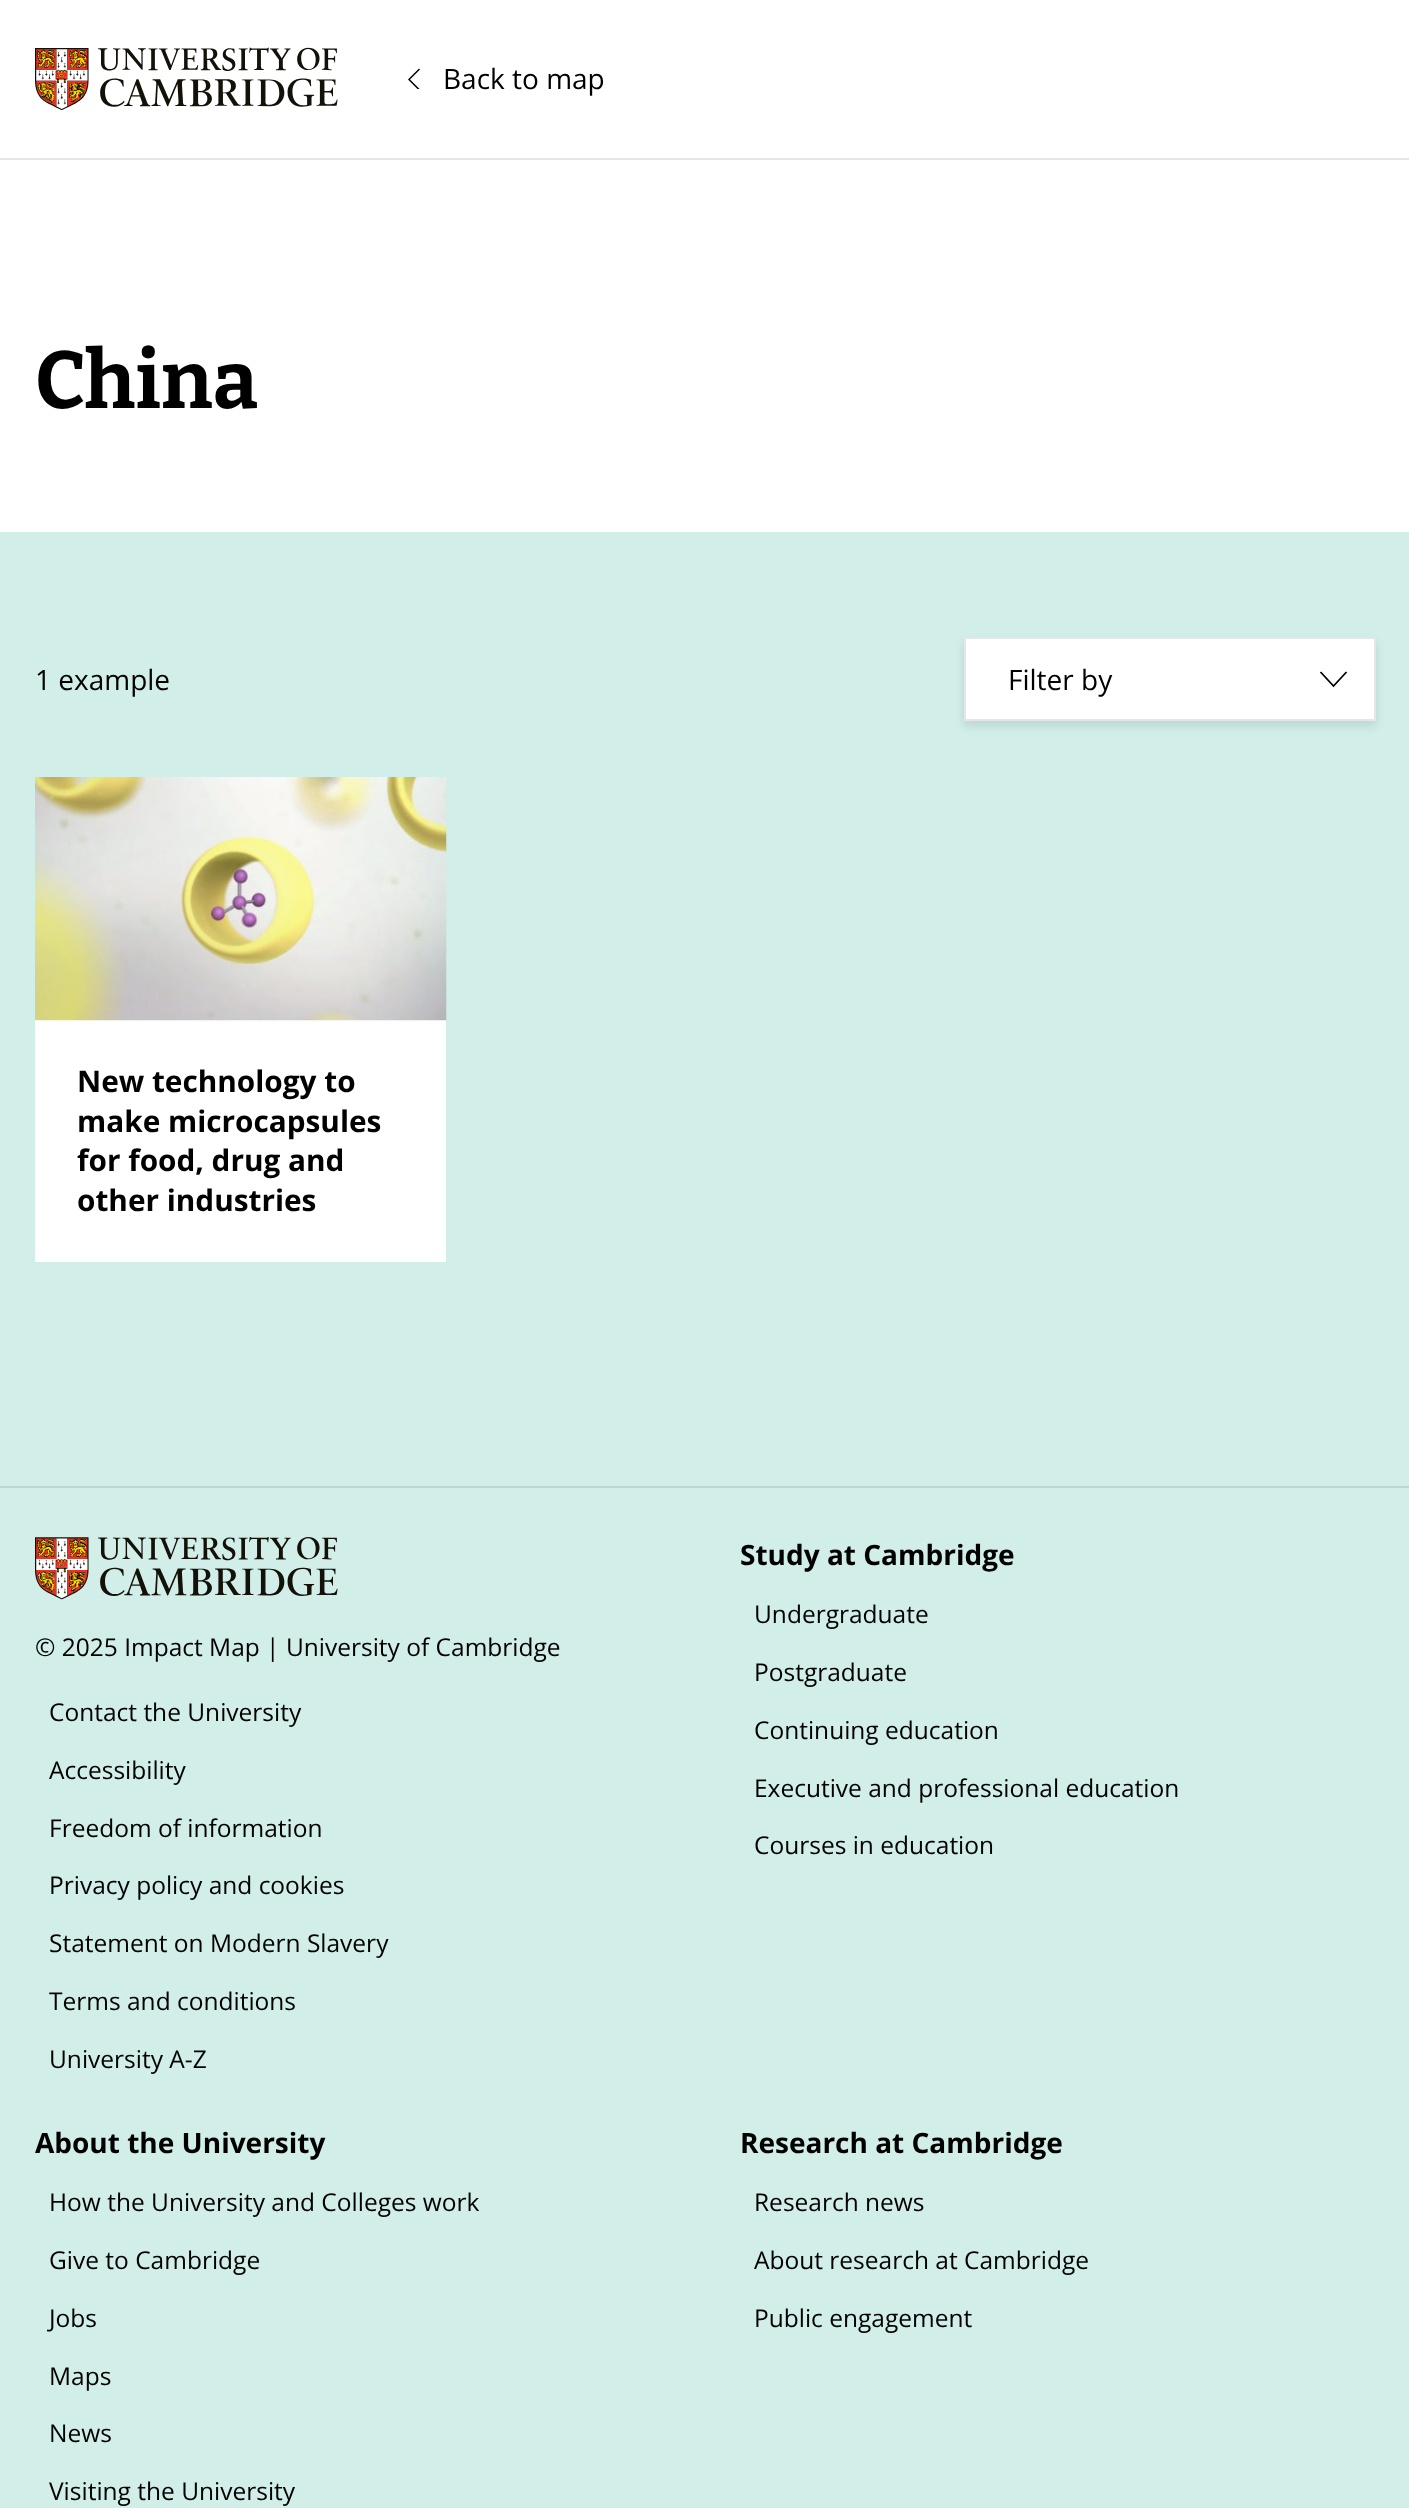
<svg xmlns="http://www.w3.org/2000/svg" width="1409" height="2508">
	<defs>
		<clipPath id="clip1"><rect x="408" y="68" width="12" height="21" /></clipPath>
	</defs>
	<rect width="100%" height="100%" fill="#FFFFFF" />
	<rect x="0" y="158" width="1409" height="2" fill="#E6E6E6" />
	<image x="35" y="47" width="303" height="63" href="assets/img1.png" />
	<g clip-path="url(#clip1)">
		<path d="M419.5 90L409 79.5L419.5 69" fill="none" stroke="#000000" stroke-width="1.5" />
	</g>
	<text x="443" y="89" font-family="Open Sans" font-size="28" fill="#000000">Back to map</text>
	<text x="35" y="408" font-family="Bitter" font-size="80.5" font-weight="100" fill="#000000">China</text>
	<rect x="0" y="532" width="1409" height="954" fill="#D1EEE9" />
	<text x="35" y="690" font-family="Open Sans" font-size="28" fill="#000000">1 example</text>
	<rect x="964" y="642" width="412" height="84" fill="#000000" fill-opacity="0.1" filter="blur(5px)" />
	<rect x="965" y="638" width="410" height="82" fill="#FEFFFE" stroke="#E5E6E5" stroke-width="2" />
	<text x="1008" y="690" font-family="Open Sans" font-size="28" fill="#000000">Filter by</text>
	<path d="M1320.5 672L1333.5 686L1346.5 672" fill="none" stroke="#000000" stroke-width="1.8" />
	<rect x="35" y="1020" width="411" height="242" fill="#FEFFFE" />
	<image x="35" y="777" width="412" height="244" href="assets/img2.png" />
	<g font-family="Open Sans" font-size="29.75" font-weight="700" fill="#000000">
		<text x="77" y="1092">New technology to</text>
		<text x="77" y="1132">make microcapsules</text>
		<text x="77" y="1171">for food, drug and</text>
		<text x="77" y="1211">other industries</text>
	</g>
	<rect x="0" y="1488" width="1409" height="1020" fill="#D1EEE9" />
	<rect x="0" y="1486" width="1409" height="2" fill="#BCD6D2" />
	<image x="35" y="1537" width="303" height="63" href="assets/img3.png" />
	<g font-family="Open Sans" font-size="24.5" fill="#000000">
		<text x="35" y="1656">© 2025 Impact Map | University of Cambridge</text>
		<text x="49" y="1721">Contact the University</text>
		<text x="49" y="1779">Accessibility</text>
		<text x="49" y="1837">Freedom of information</text>
		<text x="49" y="1894">Privacy policy and cookies</text>
		<text x="49" y="1952">Statement on Modern Slavery</text>
		<text x="49" y="2010">Terms and conditions</text>
		<text x="49" y="2068">University A-Z</text>
	</g>
	<text x="740" y="1565" font-family="Open Sans" font-size="28" font-weight="700" fill="#000000">Study at Cambridge</text>
	<g font-family="Open Sans" font-size="24.5" fill="#000000">
		<text x="754" y="1623">Undergraduate</text>
		<text x="754" y="1681">Postgraduate</text>
		<text x="754" y="1739">Continuing education</text>
		<text x="754" y="1797">Executive and professional education</text>
		<text x="754" y="1854">Courses in education</text>
	</g>
	<text x="35" y="2153" font-family="Open Sans" font-size="28" font-weight="700" fill="#000000">About the University</text>
	<g font-family="Open Sans" font-size="24.5" fill="#000000">
		<text x="49" y="2211">How the University and Colleges work</text>
		<text x="49" y="2269">Give to Cambridge</text>
		<text x="49" y="2327">Jobs</text>
		<text x="49" y="2385">Maps</text>
		<text x="49" y="2442">News</text>
		<text x="49" y="2500">Visiting the University</text>
	</g>
	<text x="740" y="2153" font-family="Open Sans" font-size="28" font-weight="700" fill="#000000">Research at Cambridge</text>
	<g font-family="Open Sans" font-size="24.5" fill="#000000">
		<text x="754" y="2211">Research news</text>
		<text x="754" y="2269">About research at Cambridge</text>
		<text x="754" y="2327">Public engagement</text>
	</g>
</svg>
